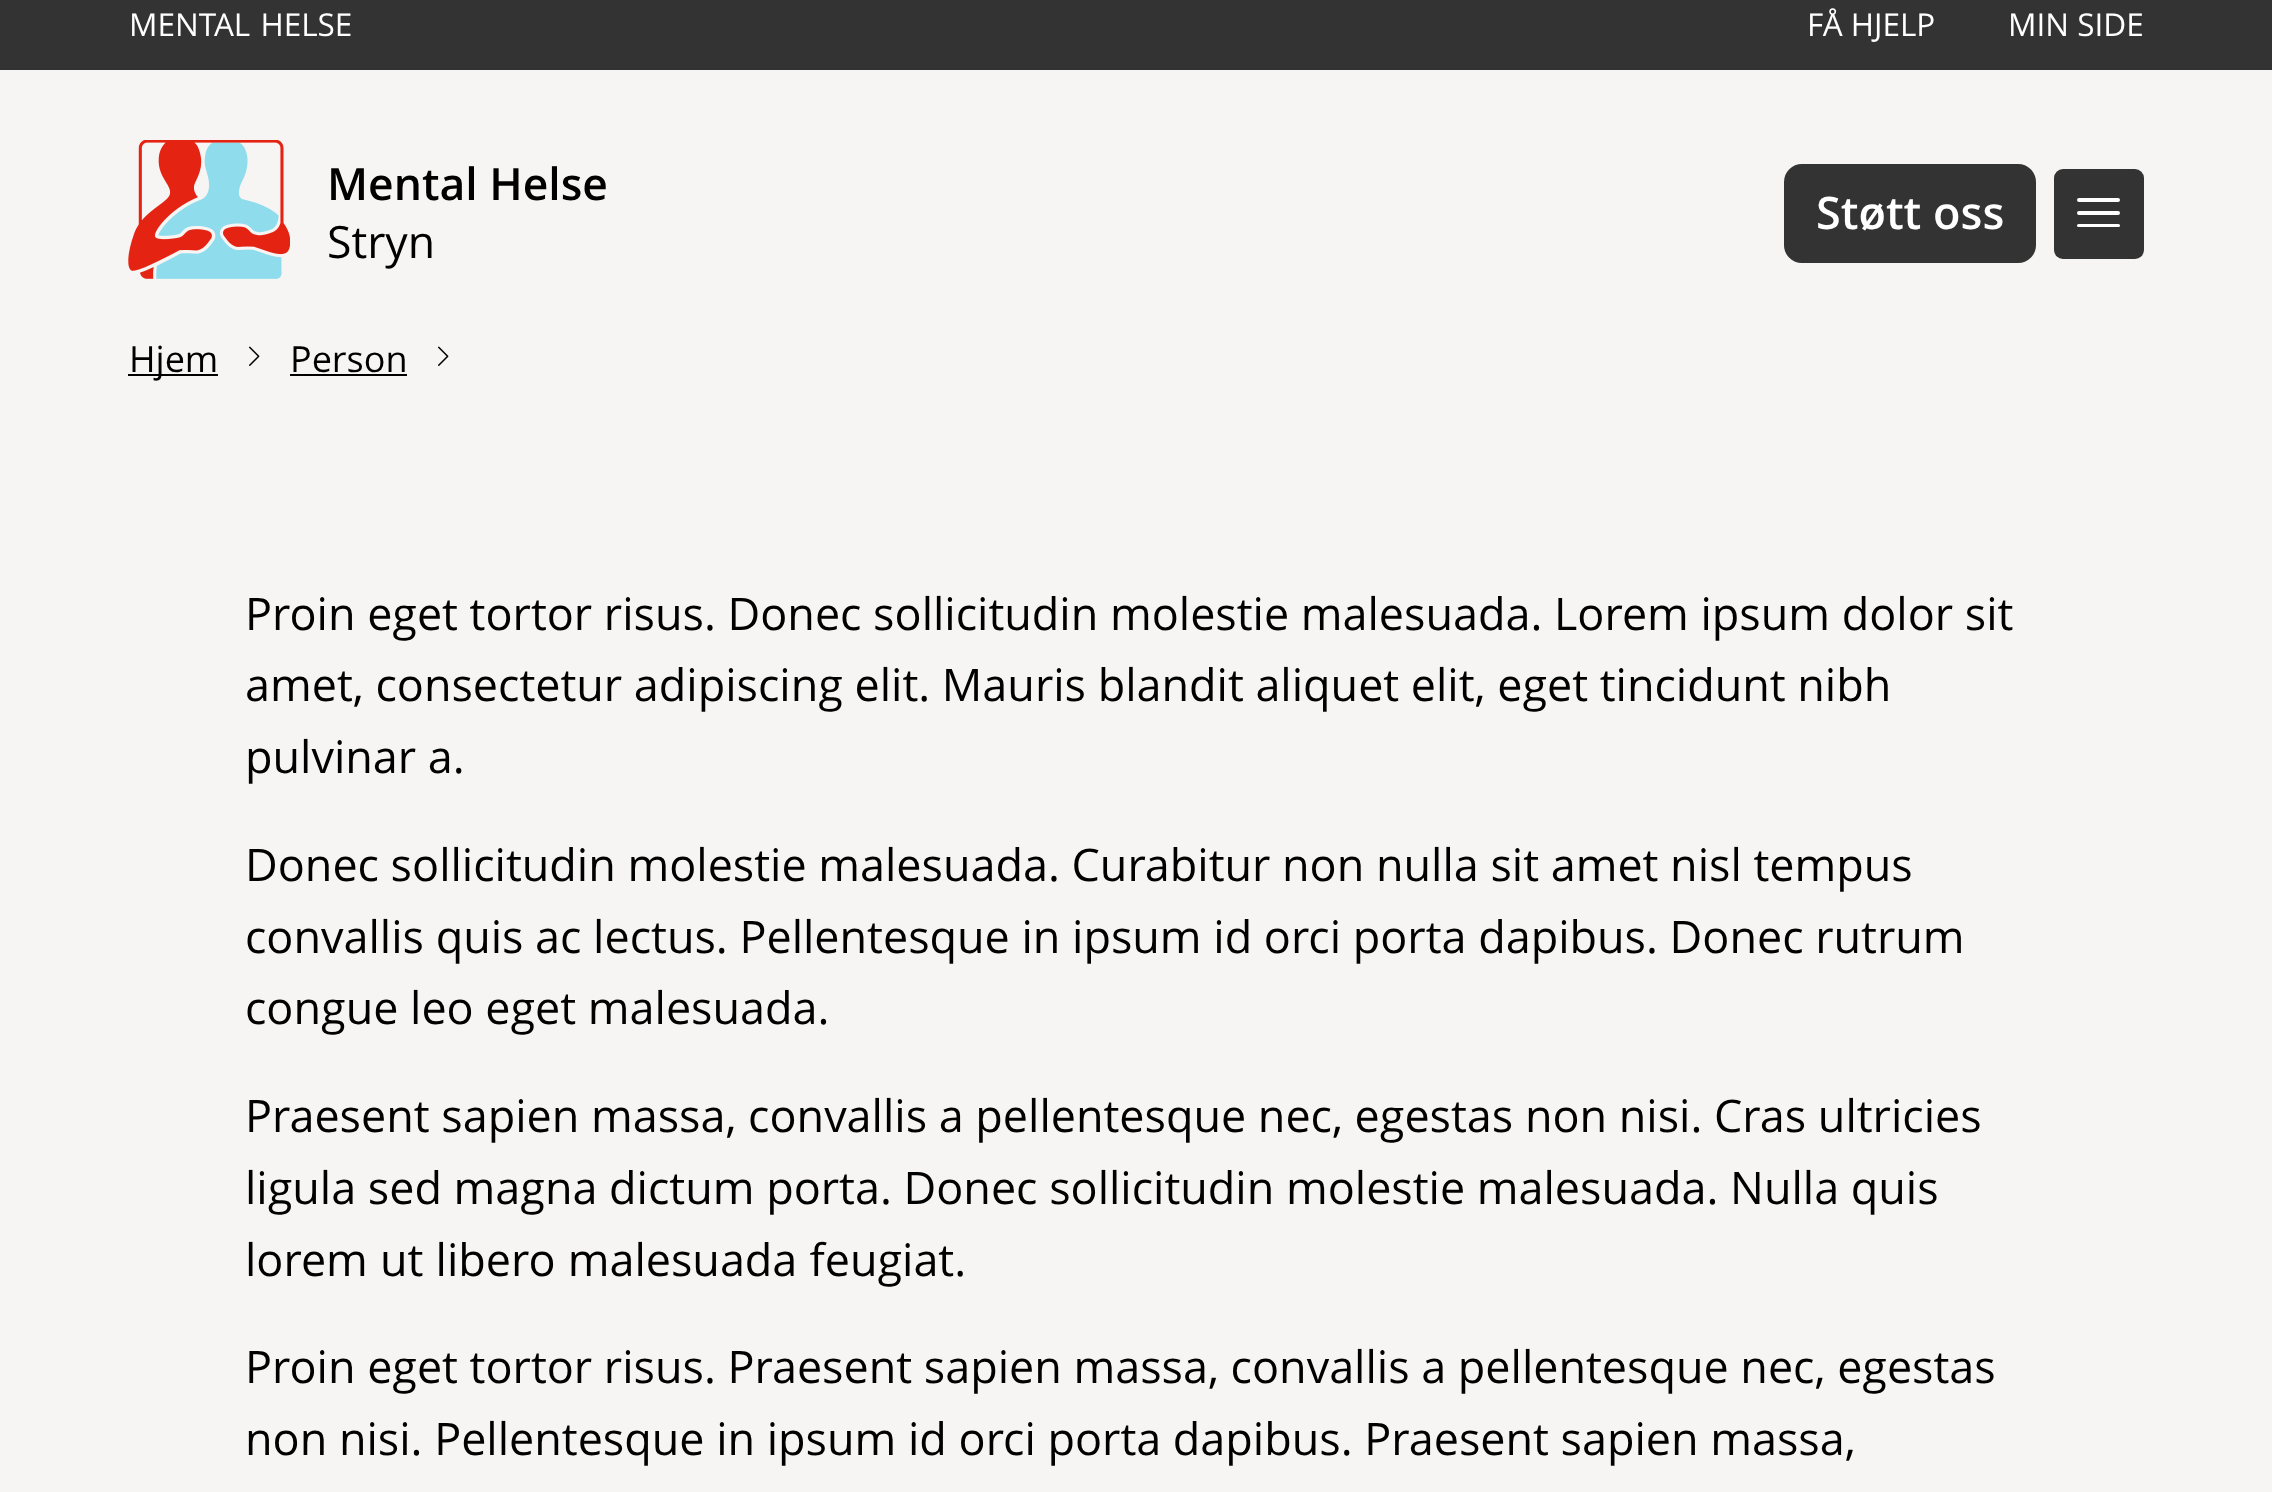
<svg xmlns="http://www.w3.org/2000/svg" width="2272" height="1492">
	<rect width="100%" height="100%" fill="#F6F5F4" />
	<rect x="0" y="0" width="2272" height="70" fill="#333333" />
	<g font-family="Open Sans" font-size="31.5" fill="#FFFFFF">
		<text x="129" y="36" word-spacing="2">MENTAL HELSE</text>
		<text x="1807" y="36">FÅ HJELP</text>
		<text x="2008" y="36">MIN SIDE</text>
	</g>
	<image x="128" y="140" width="162" height="139" href="assets/img1.png" />
	<text x="327" y="200" font-family="Open Sans" font-size="44.5" font-weight="600" fill="#000000">Mental Helse</text>
	<text x="327" y="258" font-family="Open Sans" font-size="44.5" fill="#000000">Stryn</text>
	<rect x="1786.5" y="166.5" width="247" height="94" rx="15.5" fill="#333333" stroke="#333333" stroke-width="5" />
	<text x="1816" y="229" font-family="Open Sans" font-size="45" font-weight="600" fill="#FFFFFF">Støtt oss</text>
	<rect x="2054" y="169" width="90" height="90" rx="9" fill="#333333" />
	<rect x="2077" y="198" width="43" height="4" rx="2" fill="#FFFFFF" />
	<rect x="2077" y="211" width="43" height="4" rx="2" fill="#FFFFFF" />
	<rect x="2077" y="224" width="43" height="3" rx="1.5" fill="#FFFFFF" />
	<rect x="128" y="374" width="90" height="2" fill="#000000" />
	<text x="129" y="372" font-family="Open Sans" font-size="36" fill="#000000">Hjem</text>
	<image x="249" y="346" width="11" height="20" href="assets/img2.png" />
	<text x="290" y="372" font-family="Open Sans" font-size="36" fill="#000000">Person</text>
	<rect x="290" y="374" width="117" height="2" fill="#000000" />
	<image x="438" y="346" width="11" height="20" href="assets/img2.png" />
	<g font-family="Open Sans" font-size="44.9" fill="#000000">
		<text x="245" y="630">Proin eget tortor risus. Donec sollicitudin molestie malesuada. Lorem ipsum dolor sit</text>
		<text x="245" y="701">amet, consectetur adipiscing elit. Mauris blandit aliquet elit, eget tincidunt nibh</text>
		<text x="245" y="773">pulvinar a.</text>
		<text x="245" y="881">Donec sollicitudin molestie malesuada. Curabitur non nulla sit amet nisl tempus</text>
		<text x="245" y="953">convallis quis ac lectus. Pellentesque in ipsum id orci porta dapibus. Donec rutrum</text>
		<text x="245" y="1024">congue leo eget malesuada.</text>
		<text x="245" y="1132">Praesent sapien massa, convallis a pellentesque nec, egestas non nisi. Cras ultricies</text>
		<text x="245" y="1204">ligula sed magna dictum porta. Donec sollicitudin molestie malesuada. Nulla quis</text>
		<text x="245" y="1276" word-spacing="0.5">lorem ut libero malesuada feugiat.</text>
		<text x="245" y="1383">Proin eget tortor risus. Praesent sapien massa, convallis a pellentesque nec, egestas</text>
		<text x="245" y="1455">non nisi. Pellentesque in ipsum id orci porta dapibus. Praesent sapien massa,</text>
	</g>
</svg>
